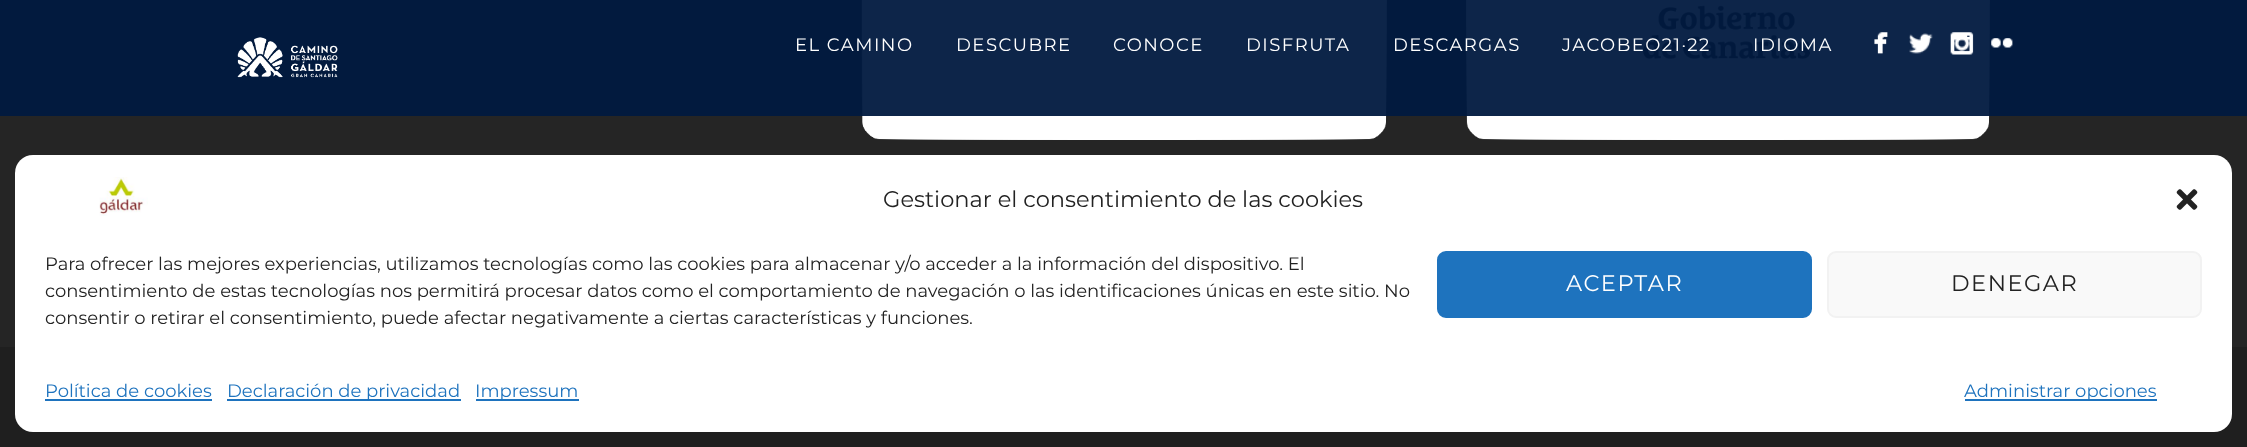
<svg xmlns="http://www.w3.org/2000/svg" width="2247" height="447">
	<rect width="100%" height="100%" fill="#252525" />
	<image x="861" y="0" width="526" height="140" href="assets/img1.png" />
	<image x="1466" y="0" width="524" height="140" href="assets/img2.png" />
	<rect x="0" y="347" width="2247" height="100" fill="#1F1F1F" />
	<rect x="0" y="0" width="2247" height="116" fill="#00193F" fill-opacity="0.95" />
	<image x="237" y="37" width="101" height="41" href="assets/img3.png" />
	<g font-family="Montserrat" font-size="18" letter-spacing="1.5" fill="#FFFFFF">
		<text x="795" y="51">EL CAMINO</text>
		<text x="956" y="51">DESCUBRE</text>
		<text x="1113" y="51">CONOCE</text>
		<text x="1246" y="51">DISFRUTA</text>
		<text x="1393" y="51">DESCARGAS</text>
		<text x="1562" y="51">JACOBEO21·22</text>
		<text x="1753" y="51">IDIOMA</text>
	</g>
	<image x="1874" y="32" width="14" height="22" href="assets/img4.png" />
	<image x="1909" y="33" width="24" height="21" href="assets/img5.png" />
	<image x="1950" y="32" width="24" height="23" href="assets/img6.png" />
	<image x="1991" y="38" width="22" height="10" href="assets/img7.png" />
	<rect x="15" y="155" width="2217" height="277" rx="18" fill="#FFFFFF" />
	<image x="99" y="177" width="49" height="39" href="assets/img8.png" />
	<text x="883" y="207" font-family="Montserrat" font-size="22.5" fill="#222222">Gestionar el consentimiento de las cookies</text>
	<image x="2176" y="189" width="22" height="21" href="assets/img9.png" />
	<g font-family="Montserrat" font-size="18" fill="#222222">
		<text x="45" y="270">Para ofrecer las mejores experiencias, utilizamos tecnologías como las cookies para almacenar y/o acceder a la información del dispositivo. El</text>
		<text x="45" y="297">consentimiento de estas tecnologías nos permitirá procesar datos como el comportamiento de navegación o las identificaciones únicas en este sitio. No</text>
		<text x="45" y="324">consentir o retirar el consentimiento, puede afectar negativamente a ciertas características y funciones.</text>
	</g>
	<rect x="1438" y="252" width="373" height="65" rx="8" fill="#1E73BE" stroke="#1E73BE" stroke-width="2" />
	<text x="1566" y="291" font-family="Montserrat" font-size="22.5" letter-spacing="1.5" fill="#FFFFFF">ACEPTAR</text>
	<rect x="1828" y="252" width="373" height="65" rx="8" fill="#F9F9F9" stroke="#F2F2F2" stroke-width="2" />
	<text x="1951" y="291" font-family="Montserrat" font-size="22.5" letter-spacing="1.5" fill="#222222">DENEGAR</text>
	<text x="45" y="397" font-family="Montserrat" font-size="18" fill="#1E73BE">Política de cookies</text>
	<rect x="45" y="399" width="167" height="2" fill="#1E73BE" />
	<rect x="227" y="399" width="234" height="2" fill="#1E73BE" />
	<text x="227" y="397" font-family="Montserrat" font-size="18" fill="#1E73BE">Declaración de privacidad</text>
	<rect x="476" y="399" width="103" height="2" fill="#1E73BE" />
	<text x="475" y="397" font-family="Montserrat" font-size="18" fill="#1E73BE">Impressum</text>
	<rect x="1965" y="399" width="192" height="2" fill="#1E73BE" />
	<text x="1964" y="397" font-family="Montserrat" font-size="18" fill="#1E73BE">Administrar opciones</text>
</svg>
